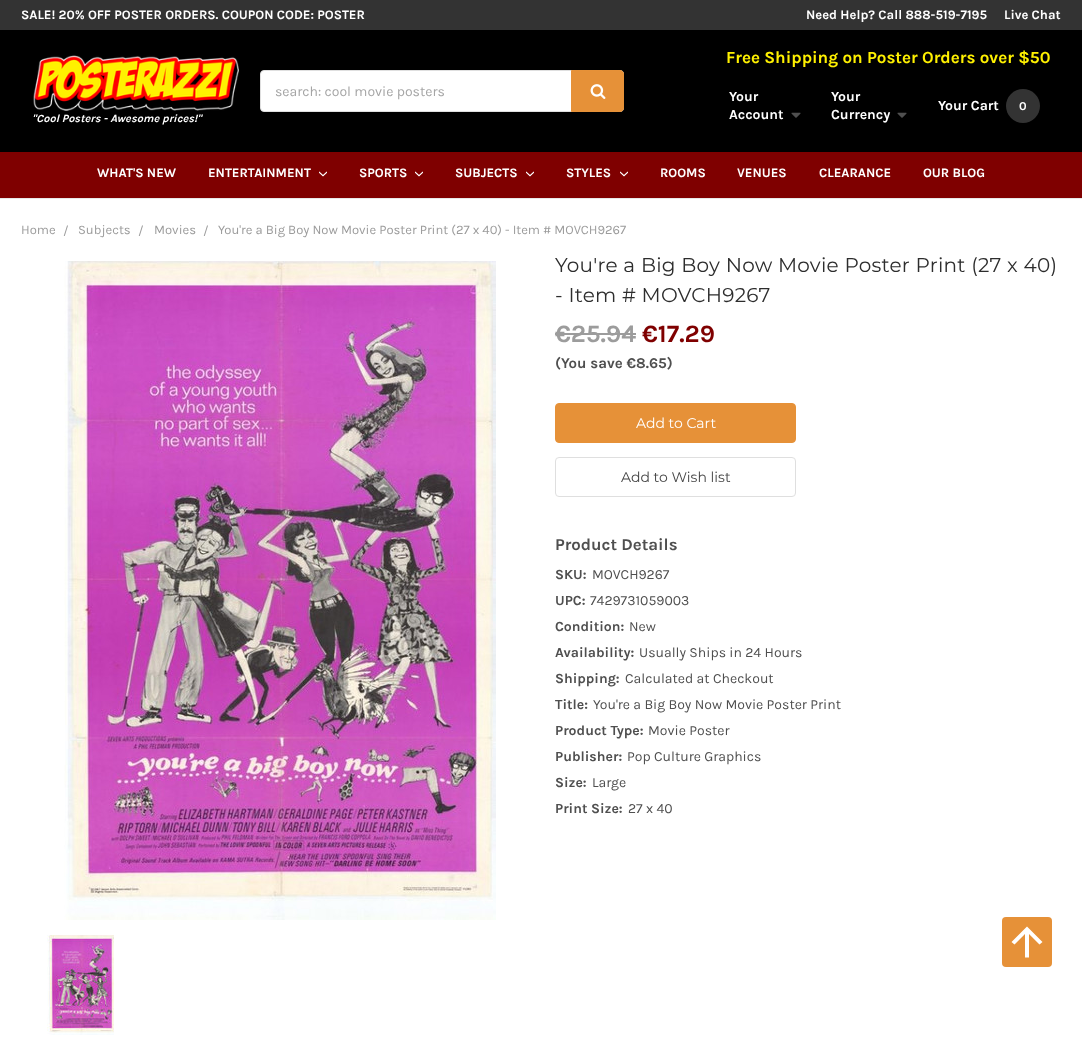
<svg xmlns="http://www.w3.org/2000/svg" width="1082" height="1037">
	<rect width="100%" height="100%" fill="#FFFFFF" />
	<rect x="0" y="30" width="1082" height="122" fill="#000000" />
	<rect x="0" y="198" width="1082" height="1" fill="#E8E8E8" />
	<rect x="0" y="0" width="1082" height="30" fill="#333333" />
	<g font-family="Karla" font-size="13" font-weight="700" fill="#FFFFFF">
		<text x="21" y="19">SALE! 20% OFF POSTER ORDERS. COUPON CODE: POSTER</text>
		<text x="806" y="19">Need Help? Call 888-519-7195</text>
		<text x="1004" y="19">Live Chat</text>
	</g>
	<rect x="260.5" y="70.5" width="363" height="41" rx="3.5" fill="#FFFFFF" stroke="#DFDFDF" />
	<text x="275" y="96" font-family="Karla" font-size="14" fill="#A5A5A5">search: cool movie posters</text>
	<path d="M571.5 70.5H620C622 70.5 623.5 72 623.5 74V108C623.5 110 622 111.5 620 111.5H571.5Z" fill="#E69138" stroke="#E69138" />
	<image x="590" y="84" width="16" height="15" href="assets/img1.png" />
	<text x="726" y="63" font-family="Karla" font-size="17" font-weight="700" fill="#FFF100">Free Shipping on Poster Orders over $50</text>
	<g font-family="Karla" font-size="14" font-weight="700" fill="#FFFFFF">
		<text x="729" y="101">Your</text>
		<text x="729" y="119">Account</text>
	</g>
	<image x="791" y="112" width="10" height="6" href="assets/img2.png" />
	<g font-family="Karla" font-size="14" font-weight="700" fill="#FFFFFF">
		<text x="831" y="101">Your</text>
		<text x="831" y="119">Currency</text>
	</g>
	<image x="897" y="112" width="10" height="6" href="assets/img2.png" />
	<text x="938" y="110" font-family="Karla" font-size="14" font-weight="700" fill="#FFFFFF">Your Cart</text>
	<circle cx="1023" cy="106" r="17" fill="#333333" />
	<text x="1019" y="110" font-family="Karla" font-size="12" font-weight="700" fill="#FFFFFF">0</text>
	<image x="33" y="55" width="206" height="56" href="assets/img3.png" />
	<text x="32" y="122" font-family="Karla" font-size="11" font-weight="700" font-style="italic" fill="#FFFFFF">"Cool Posters - Awesome prices!"</text>
	<rect x="0" y="152" width="1082" height="46" fill="#7F0000" />
	<g font-family="Karla" font-size="13" font-weight="700" fill="#FFFFFF">
		<text x="97" y="177">WHAT'S NEW</text>
		<text x="208" y="177">ENTERTAINMENT</text>
	</g>
	<image x="319" y="171" width="8" height="6" href="assets/img4.png" />
	<text x="359" y="177" font-family="Karla" font-size="13" font-weight="700" fill="#FFFFFF">SPORTS</text>
	<image x="415" y="171" width="8" height="6" href="assets/img4.png" />
	<text x="455" y="177" font-family="Karla" font-size="13" font-weight="700" fill="#FFFFFF">SUBJECTS</text>
	<image x="526" y="171" width="8" height="6" href="assets/img4.png" />
	<text x="566" y="177" font-family="Karla" font-size="13" font-weight="700" fill="#FFFFFF">STYLES</text>
	<image x="620" y="171" width="8" height="6" href="assets/img4.png" />
	<g font-family="Karla" font-size="13" font-weight="700" fill="#FFFFFF">
		<text x="660" y="177">ROOMS</text>
		<text x="737" y="177">VENUES</text>
		<text x="819" y="177">CLEARANCE</text>
		<text x="923" y="177">OUR BLOG</text>
	</g>
	<g font-family="Karla" font-size="13" fill="#9C9C9C">
		<text x="21" y="234">Home</text>
		<text x="63" y="235">/</text>
		<text x="78" y="234">Subjects</text>
		<text x="138" y="235">/</text>
		<text x="154" y="234">Movies</text>
		<text x="203" y="235">/</text>
		<text x="218" y="234">You're a Big Boy Now Movie Poster Print (27 x 40) - Item # MOVCH9267</text>
	</g>
	<image x="64" y="261" width="432" height="659" href="assets/img5.png" />
	<image x="47" y="935" width="67" height="100" href="assets/img6.png" />
	<g font-family="Montserrat" font-size="20" letter-spacing="0.25" fill="#2D2D2D">
		<text x="555" y="272">You're a Big Boy Now Movie Poster Print (27 x 40)</text>
		<text x="555" y="302">- Item # MOVCH9267</text>
	</g>
	<text x="555" y="342" font-family="Karla" font-size="25" font-weight="700" fill="#9C9C9C">€25.94</text>
	<rect x="555" y="333" width="81" height="2" fill="#9C9C9C" />
	<text x="642" y="342" font-family="Karla" font-size="25" font-weight="700" fill="#7F0000">€17.29</text>
	<text x="555" y="368" font-family="Karla" font-size="15" font-weight="700" fill="#4F4F4F">(You save €8.65)</text>
	<rect x="555.5" y="403.5" width="240" height="39" rx="3.5" fill="#E69138" stroke="#E69138" />
	<text x="636" y="428" font-family="Montserrat" font-size="14" fill="#FFFFFF">Add to Cart</text>
	<rect x="555.5" y="457.5" width="240" height="39" rx="3.5" fill="none" stroke="#DFDFDF" />
	<text x="621" y="482" font-family="Montserrat" font-size="14" fill="#454545">Add to Wish list</text>
	<text x="555" y="550" font-family="Karla" font-size="16.75" font-weight="700" fill="#4F4F4F">Product Details</text>
	<text x="555" y="579" font-family="Karla" font-size="14" font-weight="700" fill="#4F4F4F">SKU:</text>
	<text x="592" y="579" font-family="Karla" font-size="14" fill="#4F4F4F">MOVCH9267</text>
	<text x="555" y="605" font-family="Karla" font-size="14" font-weight="700" fill="#4F4F4F">UPC:</text>
	<text x="590" y="605" font-family="Karla" font-size="14" fill="#4F4F4F">7429731059003</text>
	<text x="555" y="631" font-family="Karla" font-size="14" font-weight="700" fill="#4F4F4F">Condition:</text>
	<text x="629" y="631" font-family="Karla" font-size="14" fill="#4F4F4F">New</text>
	<text x="555" y="657" font-family="Karla" font-size="14" font-weight="700" fill="#4F4F4F">Availability:</text>
	<text x="639" y="657" font-family="Karla" font-size="14" fill="#4F4F4F">Usually Ships in 24 Hours</text>
	<text x="555" y="683" font-family="Karla" font-size="14" font-weight="700" fill="#4F4F4F">Shipping:</text>
	<text x="625" y="683" font-family="Karla" font-size="14" fill="#4F4F4F">Calculated at Checkout</text>
	<text x="555" y="709" font-family="Karla" font-size="14" font-weight="700" fill="#4F4F4F">Title:</text>
	<text x="593" y="709" font-family="Karla" font-size="14" fill="#4F4F4F">You're a Big Boy Now Movie Poster Print</text>
	<text x="555" y="735" font-family="Karla" font-size="14" font-weight="700" fill="#4F4F4F">Product Type:</text>
	<text x="648" y="735" font-family="Karla" font-size="14" fill="#4F4F4F">Movie Poster</text>
	<text x="555" y="761" font-family="Karla" font-size="14" font-weight="700" fill="#4F4F4F">Publisher:</text>
	<text x="627" y="761" font-family="Karla" font-size="14" fill="#4F4F4F">Pop Culture Graphics</text>
	<text x="555" y="787" font-family="Karla" font-size="14" font-weight="700" fill="#4F4F4F">Size:</text>
	<text x="592" y="787" font-family="Karla" font-size="14" fill="#4F4F4F">Large</text>
	<text x="555" y="813" font-family="Karla" font-size="14" font-weight="700" fill="#4F4F4F">Print Size:</text>
	<text x="628" y="813" font-family="Karla" font-size="14" fill="#4F4F4F">27 x 40</text>
	<rect x="1002" y="917" width="50" height="50" rx="4" fill="#E69138" />
	<path d="M1029 957.5V934L1039.5 944.5L1042.5 942L1027 926.5L1011.5 942L1014.5 944.5L1025 934V957.5Z" fill="#FFFFFF" />
</svg>
